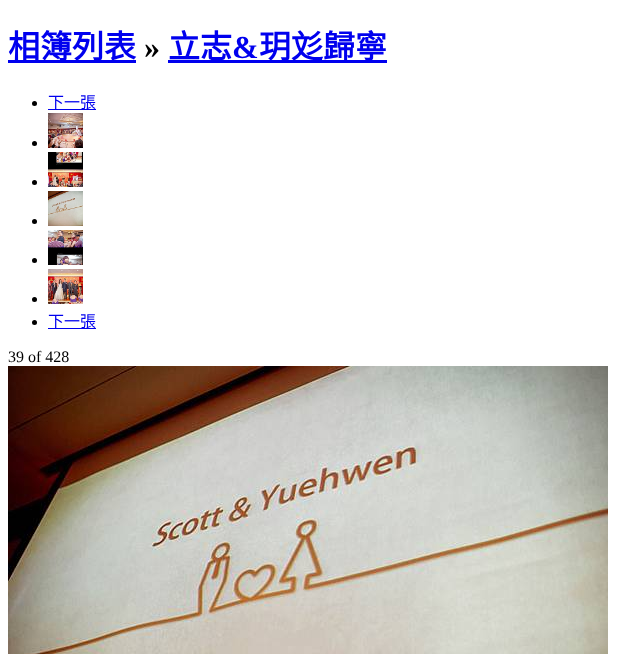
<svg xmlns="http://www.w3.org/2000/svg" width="620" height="654">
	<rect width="100%" height="100%" fill="#FFFFFF" />
	<rect x="8" y="60" width="128" height="3" fill="#0000EE" />
	<text x="8" y="58" font-family="Noto Sans CJK TC" font-size="32" font-weight="700" fill="#0000EE">相簿列表</text>
	<text x="144" y="58" font-family="Liberation Serif" font-size="32" font-weight="700" fill="#000000">»</text>
	<rect x="168" y="60" width="219" height="3" fill="#0000EE" />
	<text x="168" y="58" font-family="Noto Sans CJK TC" font-size="32" font-weight="700" fill="#0000EE">立志</text>
	<text x="232" y="58" font-family="Liberation Serif" font-size="32" font-weight="700" fill="#0000EE">&amp;</text>
	<text x="259" y="58" font-family="Noto Sans CJK TC" font-size="32" font-weight="700" fill="#0000EE">玥彣歸寧</text>
	<circle cx="34.5" cy="103.5" r="2.5" fill="#000000" />
	<rect x="48" y="109" width="48" height="1" fill="#0000EE" />
	<text x="48" y="108" font-family="Noto Sans CJK TC" font-size="16" fill="#0000EE">下一張</text>
	<circle cx="34.5" cy="143.5" r="2.5" fill="#000000" />
	<image x="48" y="113" width="35" height="35" href="assets/img1.png" />
	<circle cx="34.5" cy="182.5" r="2.5" fill="#000000" />
	<image x="48" y="152" width="35" height="35" href="assets/img2.png" />
	<circle cx="34.5" cy="221.5" r="2.5" fill="#000000" />
	<image x="48" y="191" width="35" height="35" href="assets/img3.png" />
	<circle cx="34.5" cy="260.5" r="2.5" fill="#000000" />
	<image x="48" y="230" width="35" height="35" href="assets/img4.png" />
	<circle cx="34.5" cy="299.5" r="2.5" fill="#000000" />
	<image x="48" y="269" width="35" height="35" href="assets/img5.png" />
	<circle cx="34.5" cy="322.5" r="2.5" fill="#000000" />
	<rect x="48" y="328" width="48" height="1" fill="#0000EE" />
	<text x="48" y="327" font-family="Noto Sans CJK TC" font-size="16" fill="#0000EE">下一張</text>
	<text x="8" y="362" font-family="Liberation Serif" font-size="16" fill="#000000">39 of 428</text>
	<image x="8" y="366" width="600" height="288" href="assets/img6.png" />
</svg>
